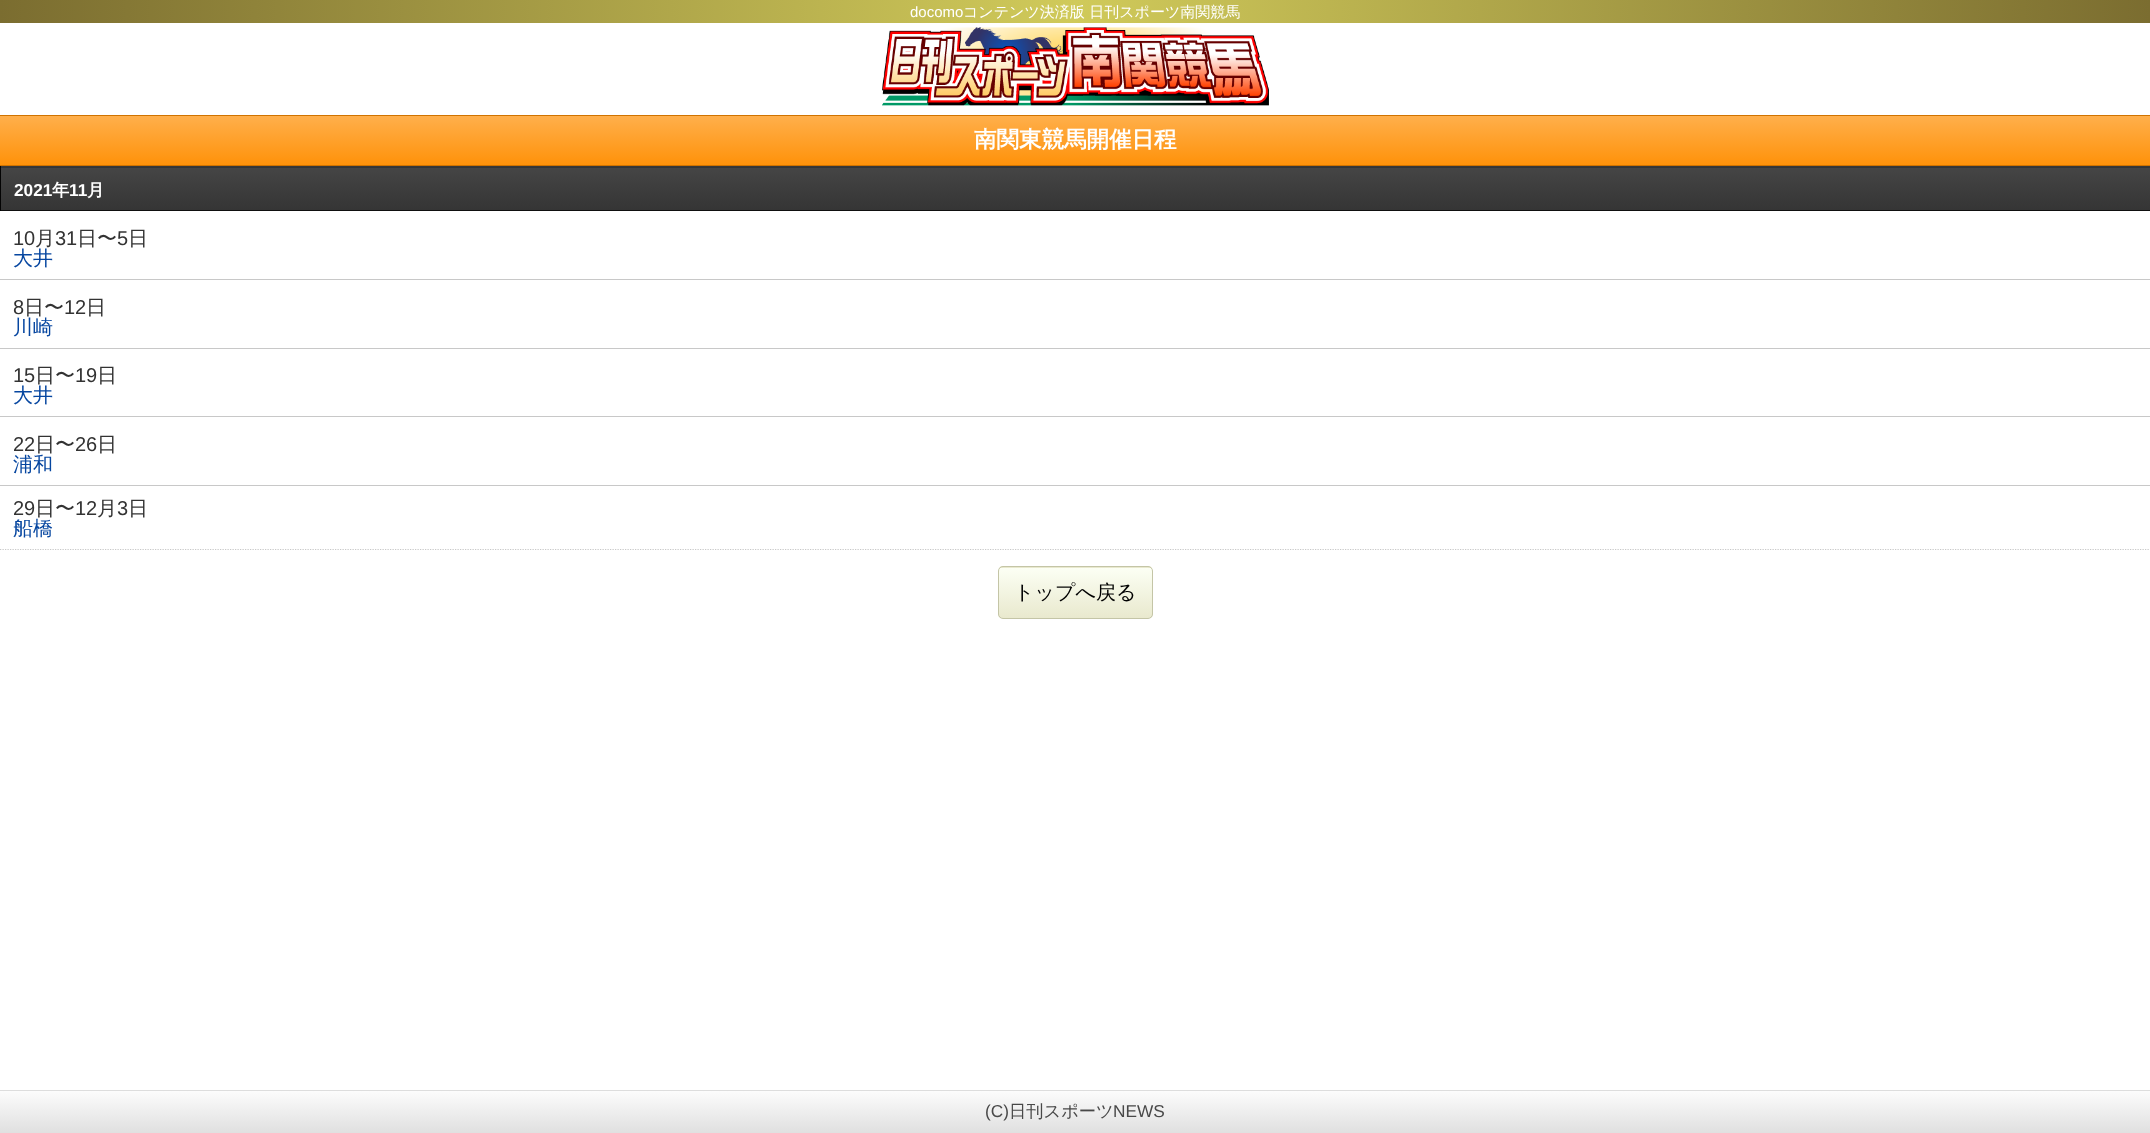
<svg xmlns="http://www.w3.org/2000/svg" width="2150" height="1133">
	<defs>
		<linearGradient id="g1" gradientUnits="userSpaceOnUse" x1="0" y1="11" x2="2150" y2="11"><stop offset="0" stop-color="#7B6D30" /><stop offset="0.5" stop-color="#D0CA5A" /><stop offset="1" stop-color="#7B6D30" /></linearGradient>
		<linearGradient id="g2" gradientUnits="userSpaceOnUse" x1="0" y1="116" x2="0" y2="165"><stop offset="0" stop-color="#FFAF4B" /><stop offset="1" stop-color="#FF920A" /></linearGradient>
		<linearGradient id="g3" gradientUnits="userSpaceOnUse" x1="1.2" y1="125" x2="1.2" y2="168"><stop offset="0" stop-color="#454545" /><stop offset="1" stop-color="#353535" /></linearGradient>
		<linearGradient id="g4" gradientUnits="userSpaceOnUse" x1="1.2" y1="168" x2="1.2" y2="210"><stop offset="0" stop-color="#454545" /><stop offset="1" stop-color="#353535" /></linearGradient>
		<clipPath id="clip1"><rect x="998" y="566" width="155" height="53" rx="5" /></clipPath>
		<linearGradient id="g5" gradientUnits="userSpaceOnUse" x1="999" y1="518" x2="999" y2="568"><stop offset="0" stop-color="#FCFFF4" /><stop offset="1" stop-color="#E9E9CE" /></linearGradient>
		<linearGradient id="g6" gradientUnits="userSpaceOnUse" x1="999" y1="568" x2="999" y2="618"><stop offset="0" stop-color="#FCFFF4" /><stop offset="1" stop-color="#E9E9CE" /></linearGradient>
		<linearGradient id="g7" gradientUnits="userSpaceOnUse" x1="1075" y1="1091" x2="1075" y2="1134"><stop offset="0" stop-color="#FCFCFC" /><stop offset="1" stop-color="#DFDFDF" /></linearGradient>
	</defs>
	<rect width="100%" height="100%" fill="#FFFFFF" />
	<rect x="0" y="0" width="2150" height="23" fill="url(#g1)" />
	<text x="910" y="17" font-family="Liberation Sans" font-size="15" fill="#FFFFFF">docomo</text>
	<text x="963" y="17" font-family="WenQuanYi Zen Hei" font-size="15" font-weight="500" fill="#FFFFFF">コンテンツ決済版 日刊スポーツ南関競馬</text>
	<image x="882" y="27" width="387" height="79" href="assets/img1.png" />
	<rect x="0" y="116" width="2150" height="49" fill="url(#g2)" />
	<rect x="0" y="115" width="2150" height="1" fill="#D07300" />
	<rect x="0" y="165" width="2150" height="1" fill="#D07300" />
	<text x="974" y="147" font-family="WenQuanYi Zen Hei" font-size="22.5" font-weight="700" fill="#FFFFFF">南関東競馬開催日程</text>
	<rect x="0" y="167" width="2150" height="1" fill="url(#g3)" />
	<rect x="1" y="168" width="2149" height="42" fill="url(#g4)" />
	<rect x="0" y="166" width="2150" height="1" fill="#383838" />
	<rect x="0" y="210" width="2150" height="1" fill="#0F0F0F" />
	<rect x="0" y="166" width="1" height="45" fill="#030303" />
	<text x="14" y="196" font-family="Liberation Sans" font-size="17.25" font-weight="700" fill="#FFFFFF">2021</text>
	<text x="52" y="196" font-family="WenQuanYi Zen Hei" font-size="17.25" font-weight="700" fill="#FFFFFF">年</text>
	<text x="69" y="196" font-family="Liberation Sans" font-size="17.25" font-weight="700" fill="#FFFFFF">11</text>
	<text x="87" y="196" font-family="WenQuanYi Zen Hei" font-size="17.25" font-weight="700" fill="#FFFFFF">月</text>
	<rect x="0" y="279" width="2150" height="1" fill="#C8C8C8" />
	<text x="13" y="245" font-family="Liberation Sans" font-size="20" fill="#333333">10</text>
	<text x="35" y="245" font-family="WenQuanYi Zen Hei" font-size="20" font-weight="500" fill="#333333">月</text>
	<text x="55" y="245" font-family="Liberation Sans" font-size="20" fill="#333333">31</text>
	<text x="77" y="245" font-family="WenQuanYi Zen Hei" font-size="20" font-weight="500" fill="#333333">日〜</text>
	<text x="117" y="245" font-family="Liberation Sans" font-size="20" fill="#333333">5</text>
	<text x="128" y="245" font-family="WenQuanYi Zen Hei" font-size="20" font-weight="500" fill="#333333">日</text>
	<text x="13" y="265" font-family="WenQuanYi Zen Hei" font-size="20" font-weight="500" fill="#0646A0">大井</text>
	<rect x="0" y="348" width="2150" height="1" fill="#C8C8C8" />
	<text x="13" y="314" font-family="Liberation Sans" font-size="20" fill="#333333">8</text>
	<text x="24" y="314" font-family="WenQuanYi Zen Hei" font-size="20" font-weight="500" fill="#333333">日〜</text>
	<text x="64" y="314" font-family="Liberation Sans" font-size="20" fill="#333333">12</text>
	<text x="86" y="314" font-family="WenQuanYi Zen Hei" font-size="20" font-weight="500" fill="#333333">日</text>
	<text x="13" y="334" font-family="WenQuanYi Zen Hei" font-size="20" font-weight="500" fill="#0646A0">川崎</text>
	<rect x="0" y="416" width="2150" height="1" fill="#C8C8C8" />
	<text x="13" y="382" font-family="Liberation Sans" font-size="20" fill="#333333">15</text>
	<text x="35" y="382" font-family="WenQuanYi Zen Hei" font-size="20" font-weight="500" fill="#333333">日〜</text>
	<text x="75" y="382" font-family="Liberation Sans" font-size="20" fill="#333333">19</text>
	<text x="97" y="382" font-family="WenQuanYi Zen Hei" font-size="20" font-weight="500" fill="#333333">日</text>
	<text x="13" y="402" font-family="WenQuanYi Zen Hei" font-size="20" font-weight="500" fill="#0646A0">大井</text>
	<rect x="0" y="485" width="2150" height="1" fill="#C8C8C8" />
	<text x="13" y="451" font-family="Liberation Sans" font-size="20" fill="#333333">22</text>
	<text x="35" y="451" font-family="WenQuanYi Zen Hei" font-size="20" font-weight="500" fill="#333333">日〜</text>
	<text x="75" y="451" font-family="Liberation Sans" font-size="20" fill="#333333">26</text>
	<text x="97" y="451" font-family="WenQuanYi Zen Hei" font-size="20" font-weight="500" fill="#333333">日</text>
	<text x="13" y="471" font-family="WenQuanYi Zen Hei" font-size="20" font-weight="500" fill="#0646A0">浦和</text>
	<text x="13" y="515" font-family="Liberation Sans" font-size="20" fill="#333333">29</text>
	<text x="35" y="515" font-family="WenQuanYi Zen Hei" font-size="20" font-weight="500" fill="#333333">日〜</text>
	<text x="75" y="515" font-family="Liberation Sans" font-size="20" fill="#333333">12</text>
	<text x="97" y="515" font-family="WenQuanYi Zen Hei" font-size="20" font-weight="500" fill="#333333">月</text>
	<text x="117" y="515" font-family="Liberation Sans" font-size="20" fill="#333333">3</text>
	<text x="128" y="515" font-family="WenQuanYi Zen Hei" font-size="20" font-weight="500" fill="#333333">日</text>
	<text x="13" y="535" font-family="WenQuanYi Zen Hei" font-size="20" font-weight="500" fill="#0646A0">船橋</text>
	<path d="M0 549.5H2150" fill="none" stroke="#C8C8C8" stroke-width="1.2" stroke-dasharray="1.25 1.25" />
	<g clip-path="url(#clip1)">
		<rect x="998" y="566" width="155" height="2" fill="url(#g5)" />
		<rect x="998" y="568" width="155" height="50" fill="url(#g6)" />
	</g>
	<rect x="998.5" y="566.5" width="154" height="52" rx="4.5" fill="none" stroke="#C4C5A6" />
	<text x="1014" y="599" font-family="WenQuanYi Zen Hei" font-size="20" font-weight="500" fill="#000000">トップへ戻る</text>
	<rect x="0" y="1091" width="2150" height="42" fill="url(#g7)" />
	<rect x="0" y="1090" width="2150" height="1" fill="#DDDDDD" />
	<text x="985" y="1117" font-family="Liberation Sans" font-size="17.25" fill="#484848">(C)</text>
	<text x="1009" y="1117" font-family="WenQuanYi Zen Hei" font-size="17.25" font-weight="500" fill="#484848">日刊スポーツ</text>
	<text x="1113" y="1117" font-family="Liberation Sans" font-size="17.25" fill="#484848">NEWS</text>
</svg>
